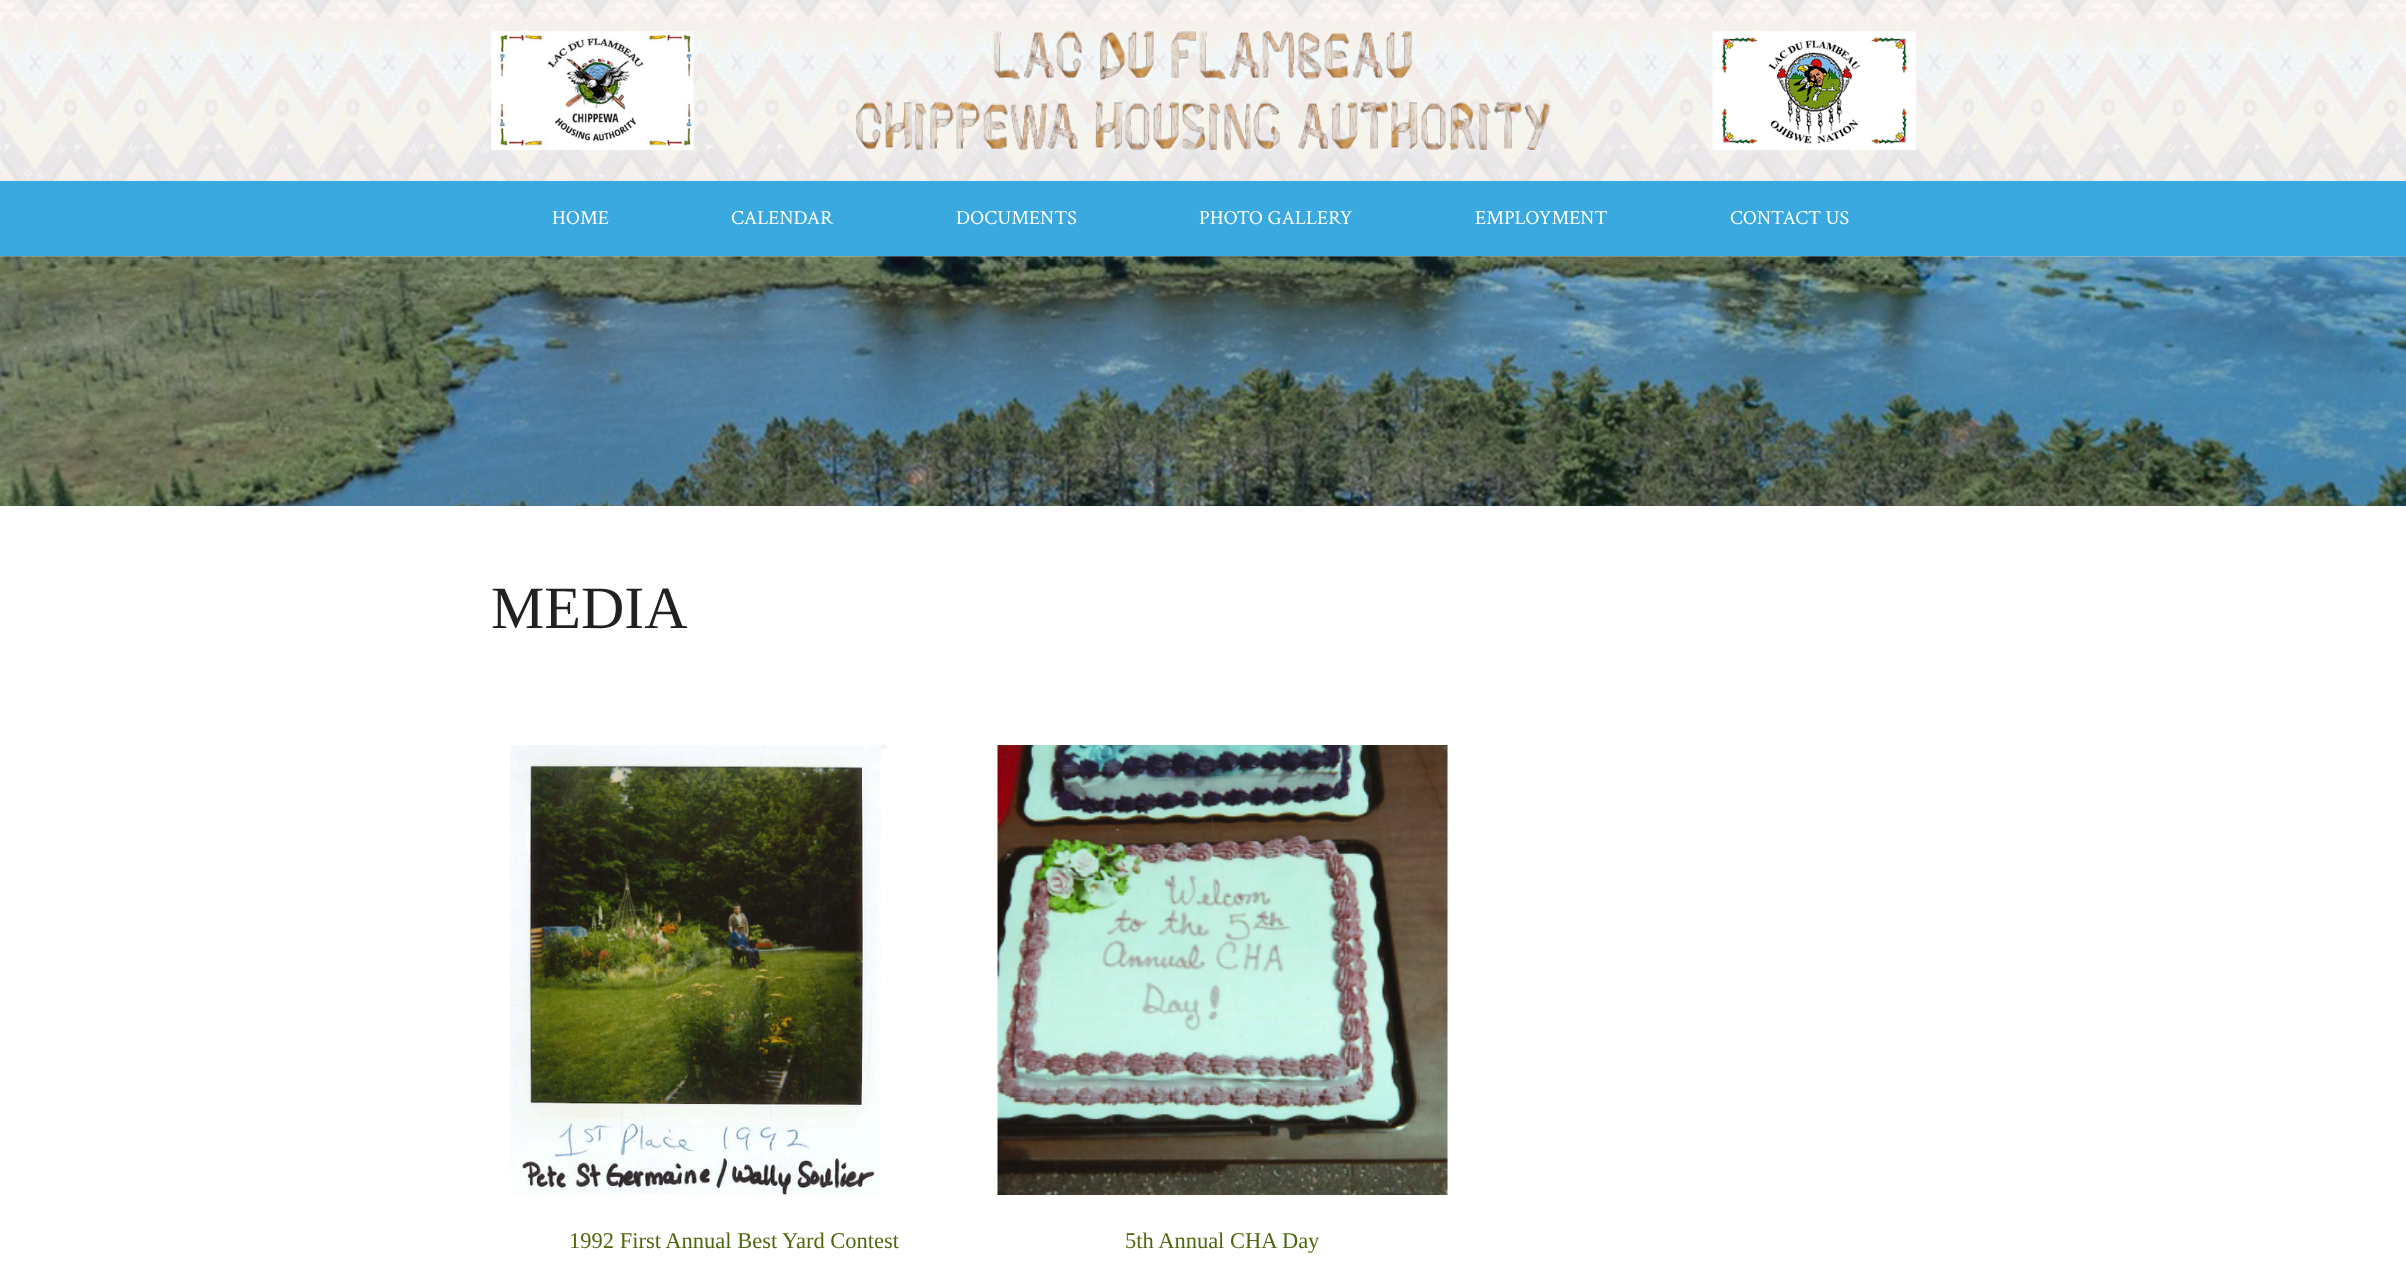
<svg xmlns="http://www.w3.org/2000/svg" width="2406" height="1282">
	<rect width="100%" height="100%" fill="#FFFFFF" />
	<image x="0" y="0" width="2406" height="181" href="assets/img1.png" />
	<image x="491" y="31" width="203" height="119" href="assets/img2.png" />
	<image x="856" y="31" width="694" height="119" href="assets/img3.png" />
	<image x="1712" y="31" width="205" height="119" href="assets/img4.png" />
	<rect x="0" y="181" width="2406" height="75" fill="#39A9E0" />
	<g font-family="Crimson Text" font-size="20" fill="#FFFFFF">
		<text x="552" y="224">HOME</text>
		<text x="731" y="224">CALENDAR</text>
		<text x="956" y="224">DOCUMENTS</text>
		<text x="1199" y="224">PHOTO GALLERY</text>
		<text x="1475" y="224">EMPLOYMENT</text>
		<text x="1730" y="224">CONTACT US</text>
	</g>
	<image x="0" y="256" width="2406" height="250" href="assets/img5.png" />
	<text x="491" y="628" font-family="Liberation Serif" font-size="60" fill="#212121">MEDIA</text>
	<image x="510" y="745" width="377" height="450" href="assets/img6.png" />
	<text x="569" y="1248" font-family="Liberation Serif" font-size="22.5" fill="#50660D">1992 First Annual Best Yard Contest</text>
	<image x="997" y="745" width="451" height="450" href="assets/img7.png" />
	<text x="1125" y="1248" font-family="Liberation Serif" font-size="22.5" fill="#50660D">5th Annual CHA Day</text>
</svg>
